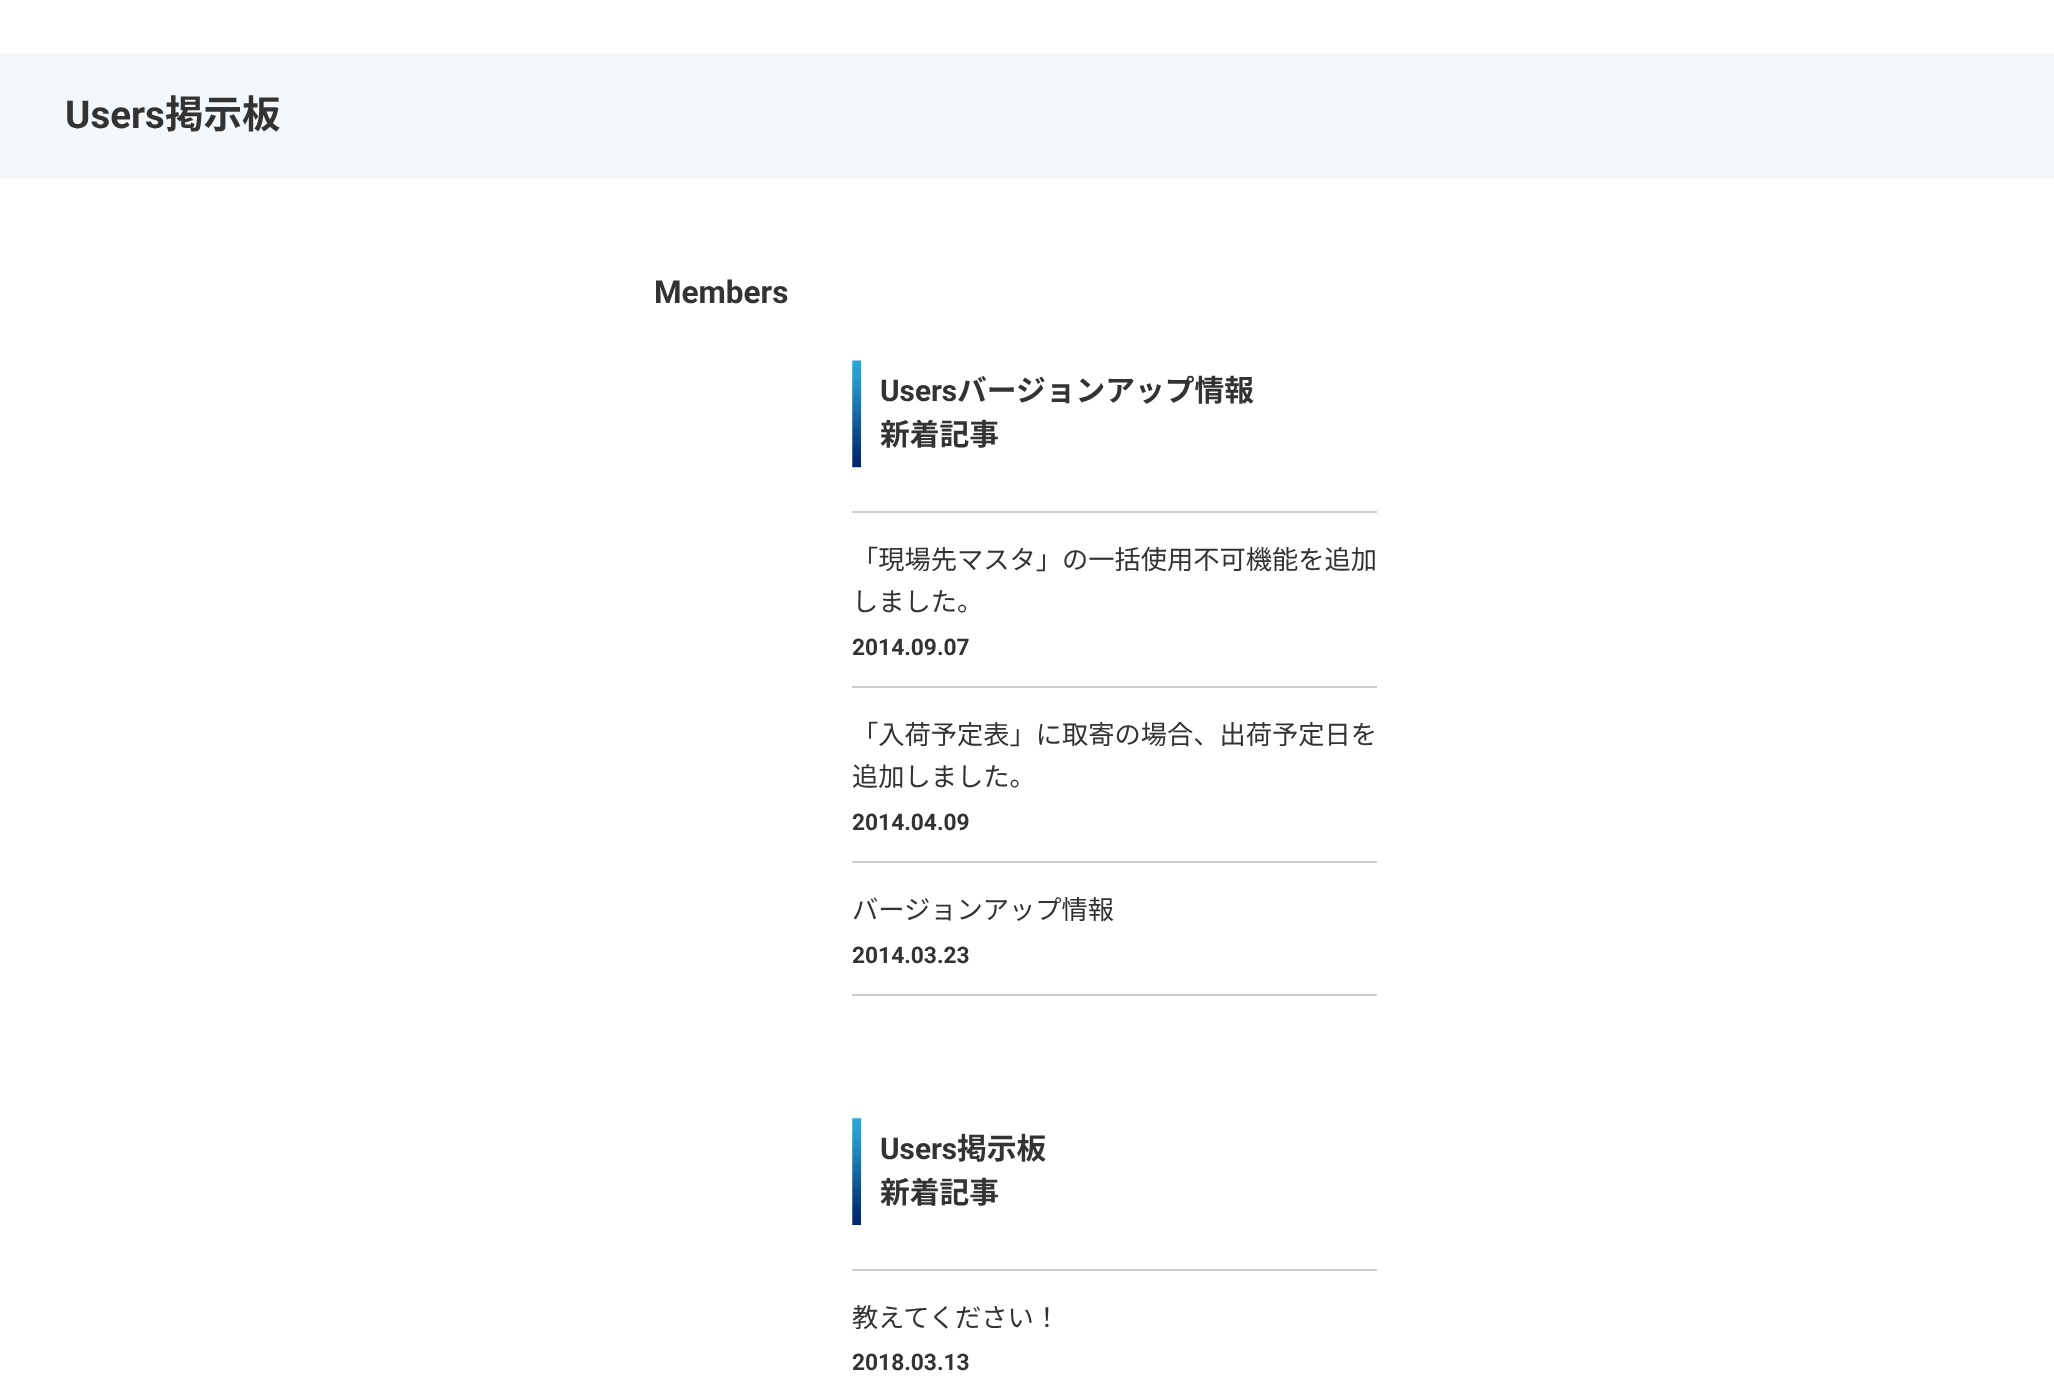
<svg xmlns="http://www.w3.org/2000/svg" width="2054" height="1390">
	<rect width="100%" height="100%" fill="#FFFFFF" />
	<rect x="0" y="53" width="2054" height="126" fill="#F4F8FB" />
	<text x="65" y="128" font-family="Roboto" font-size="38.5" font-weight="700" fill="#333333">Users</text>
	<text x="165" y="128" font-family="Noto Sans JP" font-size="38.5" font-weight="700" fill="#333333">掲示板</text>
	<text x="654" y="303" font-family="Roboto" font-size="31.5" font-weight="700" fill="#333333">Members</text>
	<image x="852" y="360" width="9" height="108" href="assets/img1.png" />
	<text x="880" y="401" font-family="Roboto" font-size="29.75" font-weight="700" fill="#333333">Users</text>
	<g font-family="Noto Sans JP" font-size="29.75" font-weight="700" fill="#333333">
		<text x="957" y="401">バージョンアップ情報</text>
		<text x="880" y="445">新着記事</text>
	</g>
	<rect x="852" y="511" width="525" height="2" fill="#CCCCCC" />
	<rect x="852" y="686" width="525" height="2" fill="#CCCCCC" />
	<g font-family="Noto Sans JP" font-size="26.25" fill="#333333">
		<text x="852" y="569">「現場先マスタ」の一括使用不可機能を追加</text>
		<text x="852" y="611">しました。</text>
	</g>
	<text x="852" y="655" font-family="Roboto" font-size="22.75" font-weight="700" fill="#333333">2014.09.07</text>
	<rect x="852" y="861" width="525" height="2" fill="#CCCCCC" />
	<g font-family="Noto Sans JP" font-size="26.25" fill="#333333">
		<text x="852" y="744">「入荷予定表」に取寄の場合、出荷予定日を</text>
		<text x="852" y="786">追加しました。</text>
	</g>
	<text x="852" y="830" font-family="Roboto" font-size="22.75" font-weight="700" fill="#333333">2014.04.09</text>
	<rect x="852" y="994" width="525" height="2" fill="#CCCCCC" />
	<text x="852" y="919" font-family="Noto Sans JP" font-size="26.25" fill="#333333">バージョンアップ情報</text>
	<text x="852" y="963" font-family="Roboto" font-size="22.75" font-weight="700" fill="#333333">2014.03.23</text>
	<image x="852" y="1118" width="9" height="107" href="assets/img2.png" />
	<text x="880" y="1159" font-family="Roboto" font-size="29.75" font-weight="700" fill="#333333">Users</text>
	<g font-family="Noto Sans JP" font-size="29.75" font-weight="700" fill="#333333">
		<text x="957" y="1159">掲示板</text>
		<text x="880" y="1203">新着記事</text>
	</g>
	<rect x="852" y="1269" width="525" height="2" fill="#CCCCCC" />
	<text x="852" y="1327" font-family="Noto Sans JP" font-size="26.25" fill="#333333">教えてください！</text>
	<text x="852" y="1370" font-family="Roboto" font-size="22.75" font-weight="700" fill="#333333">2018.03.13</text>
</svg>
